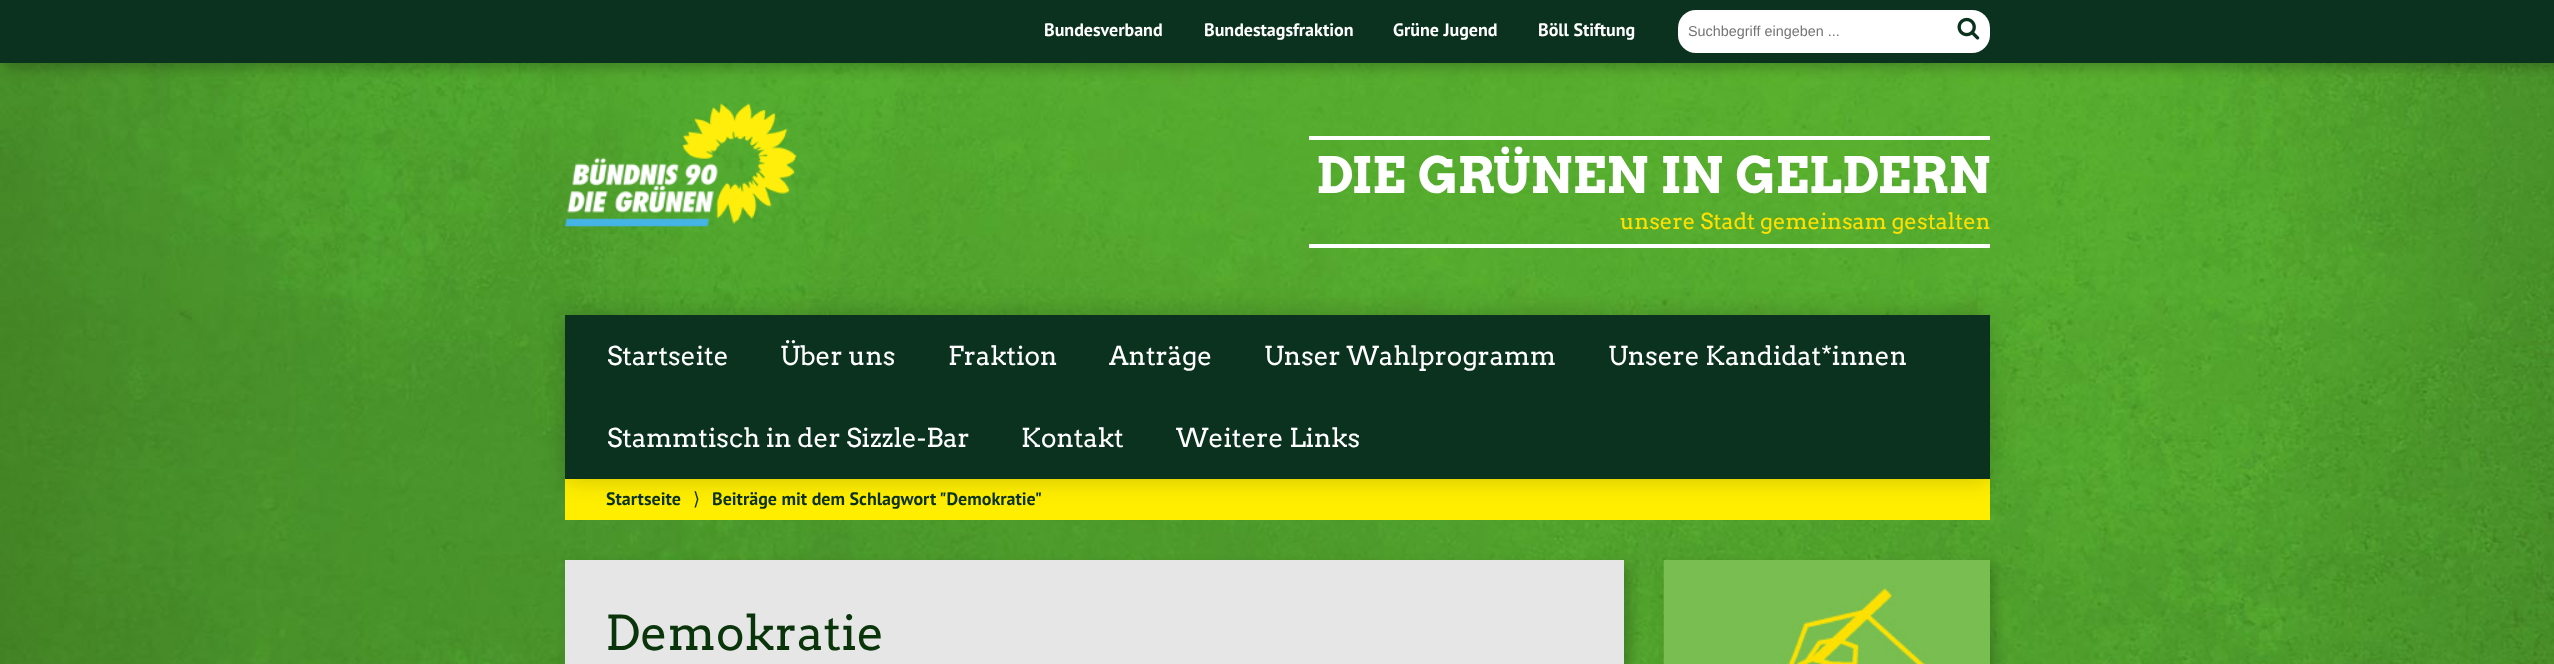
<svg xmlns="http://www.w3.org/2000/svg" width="2554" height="664">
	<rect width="100%" height="100%" fill="#FFFFFF" />
	<image x="0" y="63" width="2554" height="601" href="assets/img1.png" />
	<rect x="6" y="6" width="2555" height="63" fill="#000000" fill-opacity="0.2" filter="blur(6px)" />
	<rect x="0" y="0" width="2554" height="63" fill="#0A321E" />
	<g font-family="PT Sans" font-size="18" font-weight="700" fill="#FFFFFF">
		<text x="1044" y="36">Bundesverband</text>
		<text x="1204" y="36">Bundestagsfraktion</text>
		<text x="1393" y="36">Grüne Jugend</text>
		<text x="1538" y="36">Böll Stiftung</text>
	</g>
	<rect x="1678" y="10" width="312" height="43" rx="18" fill="#FFFFFF" />
	<text x="1688" y="36" font-family="Liberation Sans" font-size="14.4" fill="#757575">Suchbegriff eingeben ...</text>
	<image x="1957" y="17" width="23" height="23" href="assets/img2.png" />
	<image x="565" y="103" width="232" height="124" href="assets/img3.png" />
	<rect x="1309" y="136" width="681" height="4" fill="#FFFFFF" />
	<rect x="1309" y="244" width="681" height="4" fill="#FFFFFF" />
	<text x="1316" y="193" font-family="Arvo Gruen" font-size="50" fill="#FFFFFF">DIE GRÜNEN IN GELDERN</text>
	<text x="1620" y="229" font-family="Arvo" font-size="22" fill="#FFE000">unsere Stadt gemeinsam gestalten</text>
	<rect x="565" y="479" width="1425" height="41" fill="#FFEE00" />
	<rect x="565" y="315" width="1425" height="164" fill="#000000" fill-opacity="0.2" filter="blur(12.5px)" />
	<rect x="565" y="315" width="1425" height="164" fill="#0A321E" />
	<g font-family="Arvo" font-size="26" fill="#FFFFFF">
		<text x="607" y="365">Startseite</text>
		<text x="780" y="365">Über uns</text>
		<text x="948" y="365">Fraktion</text>
		<text x="1109" y="365">Anträge</text>
		<text x="1264" y="365">Unser Wahlprogramm</text>
		<text x="1608" y="365">Unsere Kandidat*innen</text>
		<text x="607" y="447">Stammtisch in der Sizzle-Bar</text>
		<text x="1021" y="447">Kontakt</text>
		<text x="1176" y="447">Weitere Links</text>
	</g>
	<text x="606" y="505" font-family="PT Sans" font-size="18" font-weight="700" fill="#0A321E">Startseite</text>
	<text x="693" y="505" font-family="DejaVu Sans" font-size="18" fill="#0A321E">⟩</text>
	<text x="712" y="505" font-family="PT Sans" font-size="18" font-weight="700" fill="#0A321E">Beiträge mit dem Schlagwort "Demokratie"</text>
	<rect x="571" y="566" width="1059" height="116" fill="#000000" fill-opacity="0.2" filter="blur(6px)" />
	<rect x="565" y="560" width="1059" height="104" fill="#E6E6E6" />
	<text x="605" y="650" font-family="Arvo" font-size="48" fill="#0A350A">Demokratie</text>
	<rect x="1670" y="566" width="326" height="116" fill="#000000" fill-opacity="0.2" filter="blur(6px)" />
	<image x="1663" y="560" width="327" height="104" href="assets/img4.png" />
</svg>
